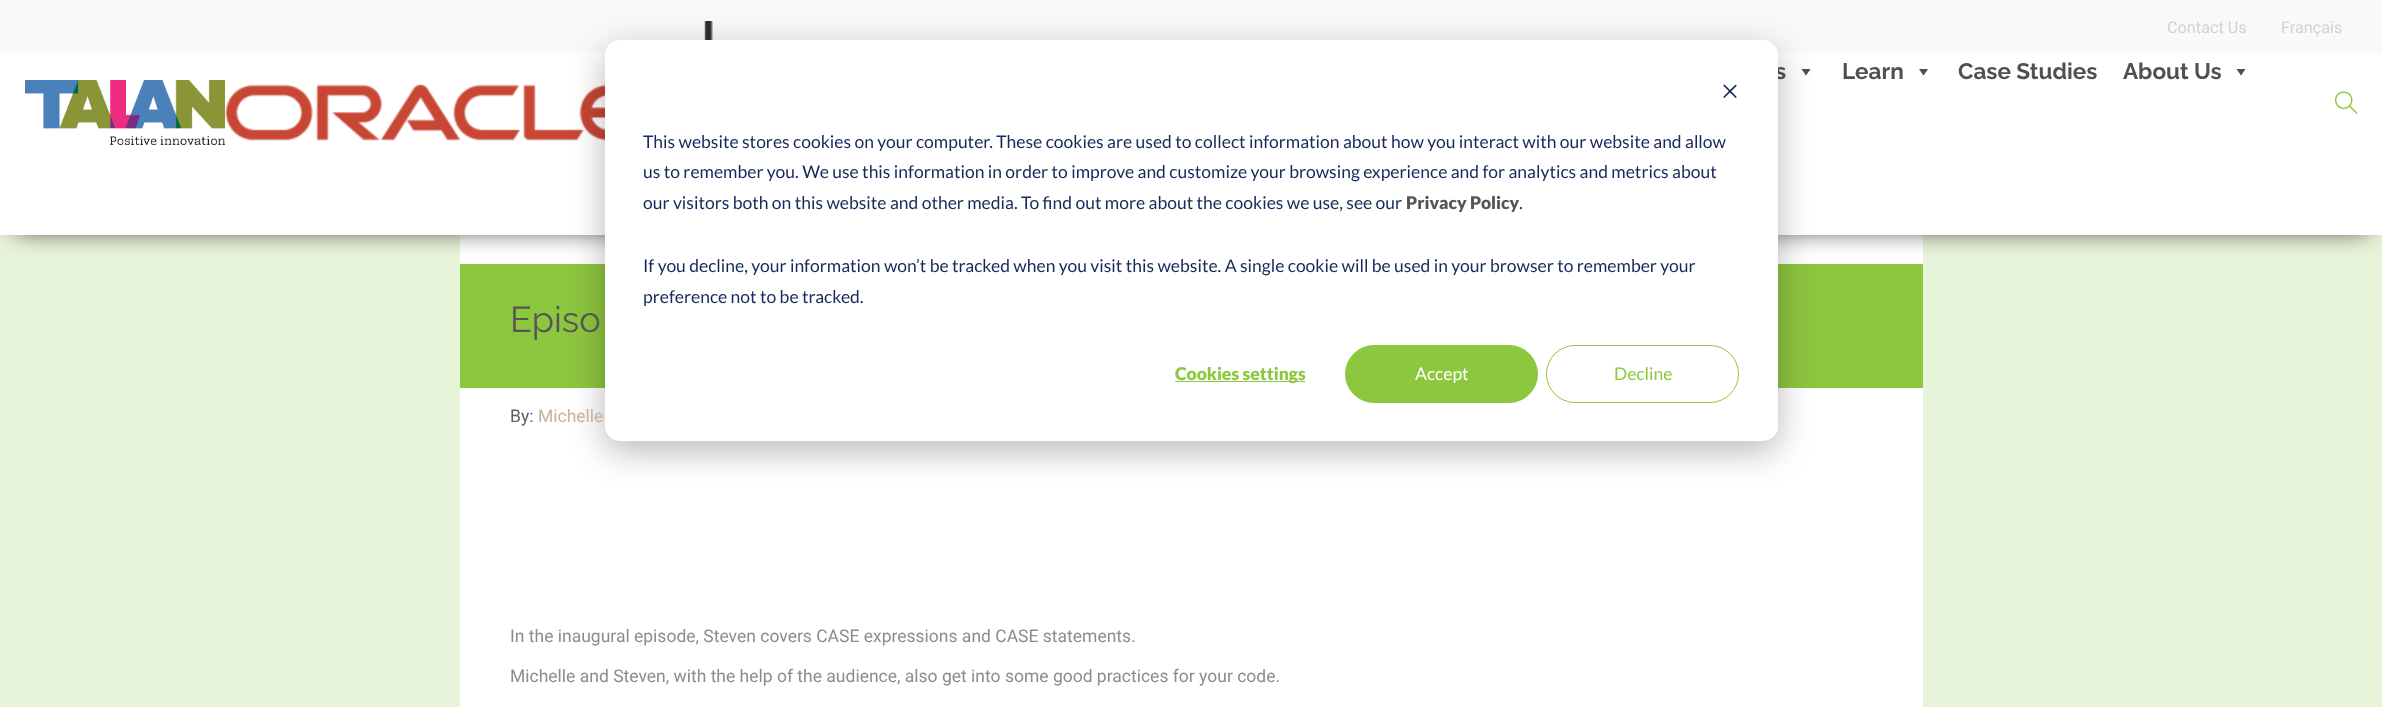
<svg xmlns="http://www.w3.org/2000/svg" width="2382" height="707">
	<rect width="100%" height="100%" fill="#E8F4D9" />
	<rect x="460" y="235" width="1463" height="472" fill="#FFFFFF" />
	<rect x="460" y="264" width="1463" height="124" fill="#8DC63F" />
	<rect x="15" y="26" width="2353" height="205" fill="#000000" fill-opacity="0.75" filter="blur(12.5px)" />
	<rect x="0" y="53" width="2382" height="182" fill="#FFFFFF" />
	<rect x="0" y="0" width="2382" height="53" fill="#F9F9F9" />
	<g font-family="Roboto" font-size="16.25" fill="#D2D2D2">
		<text x="2167" y="33">Contact Us</text>
		<text x="2281" y="33">Français</text>
	</g>
	<image x="225" y="21" width="488" height="120" href="assets/img1.png" />
	<text x="1775" y="79" font-family="Raleway" font-size="22.5" font-weight="700" fill="#4E5053">s</text>
	<path d="M1810.5 69L1806 75.5L1801.5 69Z" fill="#4E5053" />
	<text x="1842" y="79" font-family="Raleway" font-size="22.5" font-weight="700" fill="#4E5053">Learn</text>
	<path d="M1928 69L1923.5 75.5L1919 69Z" fill="#4E5053" />
	<g font-family="Raleway" font-size="22.5" font-weight="700" fill="#4E5053">
		<text x="1958" y="79">Case Studies</text>
		<text x="2123" y="79">About Us</text>
	</g>
	<path d="M2245.5 69L2241 75.5L2236.5 69Z" fill="#4E5053" />
	<image x="2334" y="91" width="24" height="23" href="assets/img2.png" />
	<image x="25" y="80" width="200" height="65" href="assets/img3.png" />
	<rect x="605" y="50" width="1173" height="401" rx="15" fill="#000000" fill-opacity="0.28" filter="blur(17.5px)" />
	<rect x="605" y="40" width="1173" height="401" rx="15" fill="#FFFFFF" />
	<image x="1723" y="84" width="14" height="14" href="assets/img4.png" />
	<g font-family="Lato" font-size="17.5" fill="#15295A">
		<text x="643" y="148">This website stores cookies on your computer. These cookies are used to collect information about how you interact with our website and allow</text>
		<text x="643" y="178">us to remember you. We use this information in order to improve and customize your browsing experience and for analytics and metrics about</text>
		<text x="643" y="209">our visitors both on this website and other media. To find out more about the cookies we use, see our</text>
	</g>
	<text x="1406" y="209" font-family="Lato" font-size="17.5" font-weight="900" fill="#555555">Privacy Policy</text>
	<g font-family="Lato" font-size="17.5" fill="#15295A">
		<text x="1519" y="209">.</text>
		<text x="643" y="272">If you decline, your information won’t be tracked when you visit this website. A single cookie will be used in your browser to remember your</text>
		<text x="643" y="303">preference not to be tracked.</text>
	</g>
	<rect x="1175" y="381" width="130" height="1" fill="#8DC63F" />
	<text x="1175" y="380" font-family="Lato" font-size="17.5" font-weight="900" fill="#8DC63F">Cookies settings</text>
	<rect x="1345.5" y="345.5" width="192" height="57" rx="28.5" fill="#8DC63F" stroke="#8DC63F" />
	<text x="1415" y="380" font-family="Lato" font-size="17.5" fill="#FFFFFF">Accept</text>
	<rect x="1546.5" y="345.5" width="192" height="57" rx="28.5" fill="none" stroke="#8DC63F" />
	<text x="1614" y="380" font-family="Lato" font-size="17.5" fill="#8DC63F">Decline</text>
	<text x="510" y="332" font-family="Raleway" font-size="36" fill="#555555">Episo</text>
	<text x="510" y="422" font-family="Roboto" font-size="17.5" fill="#5F5F61">By:</text>
	<text x="538" y="422" font-family="Roboto" font-size="17.5" fill="#C7B299">Michelle</text>
	<g font-family="Roboto" font-size="17.5" fill="#8C8C8C">
		<text x="510" y="642">In the inaugural episode, Steven covers CASE expressions and CASE statements.</text>
		<text x="510" y="682">Michelle and Steven, with the help of the audience, also get into some good practices for your code.</text>
	</g>
</svg>
